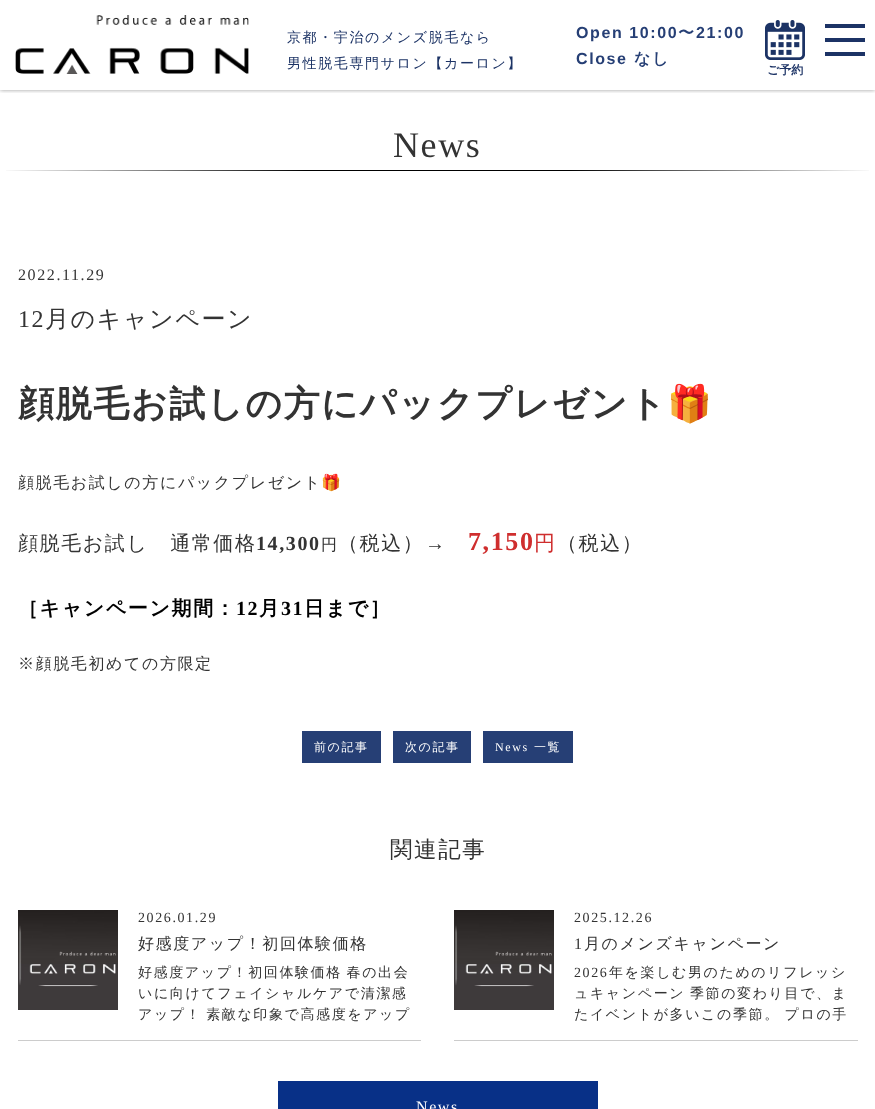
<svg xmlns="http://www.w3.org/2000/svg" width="875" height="1109">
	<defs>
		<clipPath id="clip1"><rect x="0" y="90" width="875" height="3" /></clipPath>
	</defs>
	<rect width="100%" height="100%" fill="#FFFFFF" />
	<g clip-path="url(#clip1)">
		<rect x="0" y="0" width="875" height="90" fill="#000000" fill-opacity="0.4" filter="blur(2px)" />
	</g>
	<image x="15" y="15" width="234" height="59" href="assets/img1.png" />
	<g font-family="WenQuanYi Zen Hei" font-size="14" font-weight="500" letter-spacing="1.6" fill="#1C3365">
		<text x="287" y="42">京都・宇治のメンズ脱毛なら</text>
		<text x="287" y="68">男性脱毛専門サロン【カーロン】</text>
	</g>
	<text x="576" y="38" font-family="Liberation Sans" font-size="16" font-weight="700" letter-spacing="1.6" fill="#263F75">Open 10:00</text>
	<text x="678" y="38" font-family="WenQuanYi Zen Hei" font-size="16" font-weight="700" letter-spacing="1.6" fill="#263F75">〜</text>
	<g font-family="Liberation Sans" font-size="16" font-weight="700" letter-spacing="1.6" fill="#263F75">
		<text x="696" y="38">21:00</text>
		<text x="576" y="64">Close</text>
	</g>
	<text x="634" y="64" font-family="WenQuanYi Zen Hei" font-size="16" font-weight="700" letter-spacing="1.6" fill="#263F75">なし</text>
	<image x="765" y="20" width="40" height="40" href="assets/img2.png" />
	<text x="767" y="74" font-family="WenQuanYi Zen Hei" font-size="12" font-weight="700" fill="#1C3365">ご予約</text>
	<rect x="825" y="38" width="40" height="4" fill="#1C3365" />
	<rect x="825" y="24" width="40" height="4" fill="#1C3365" />
	<rect x="825" y="52" width="40" height="4" fill="#1C3365" />
	<image x="6" y="170" width="863" height="1" href="assets/img3.png" />
	<text x="393" y="157" font-family="Liberation Serif" font-size="36" letter-spacing="1.6" fill="#333333">News</text>
	<text x="18" y="280" font-family="Liberation Serif" font-size="16" letter-spacing="1.6" fill="#333333">2022.11.29</text>
	<text x="18" y="327" font-family="Liberation Serif" font-size="24" letter-spacing="1.6" fill="#333333">12</text>
	<text x="45" y="327" font-family="WenQuanYi Zen Hei" font-size="24" font-weight="500" letter-spacing="1.6" fill="#333333">月のキャンペーン</text>
	<text x="18" y="416" font-family="WenQuanYi Zen Hei" font-size="36" font-weight="700" letter-spacing="1.6" fill="#333333">顔脱毛お試しの方にパックプレゼント</text>
	<text x="667" y="416" font-family="Noto Color Emoji" font-size="36" font-weight="700" letter-spacing="1.6" fill="#333333">🎁</text>
	<text x="18" y="488" font-family="WenQuanYi Zen Hei" font-size="16" font-weight="500" letter-spacing="1.6" fill="#333333">顔脱毛お試しの方にパックプレゼント</text>
	<text x="321" y="488" font-family="Noto Color Emoji" font-size="16" letter-spacing="1.6" fill="#333333">🎁</text>
	<text x="18" y="550" font-family="WenQuanYi Zen Hei" font-size="20" font-weight="500" letter-spacing="1.6" fill="#333333">顔脱毛お試し　通常価格</text>
	<text x="256" y="550" font-family="Liberation Serif" font-size="20" font-weight="700" letter-spacing="1.6" fill="#333333">14,300</text>
	<text x="321" y="550" font-family="WenQuanYi Zen Hei" font-size="16" font-weight="500" letter-spacing="1.6" fill="#333333">円</text>
	<text x="338" y="550" font-family="WenQuanYi Zen Hei" font-size="20" font-weight="500" letter-spacing="1.6" fill="#333333">（税込）</text>
	<text x="425" y="550" font-family="Liberation Serif" font-size="20" letter-spacing="1.6" fill="#333333">→</text>
	<text x="468" y="550" font-family="Liberation Serif" font-size="26" font-weight="700" letter-spacing="1.6" fill="#CF2E2E">7,150</text>
	<text x="534" y="550" font-family="WenQuanYi Zen Hei" font-size="21" font-weight="500" letter-spacing="1.6" fill="#CF2E2E">円</text>
	<text x="557" y="550" font-family="WenQuanYi Zen Hei" font-size="20" font-weight="500" letter-spacing="1.6" fill="#333333">（税込）</text>
	<text x="18" y="615" font-family="WenQuanYi Zen Hei" font-size="20" font-weight="700" letter-spacing="1.6" fill="#000000">［キャンペーン期間：</text>
	<text x="236" y="615" font-family="Liberation Serif" font-size="20" font-weight="700" letter-spacing="1.6" fill="#000000">12</text>
	<text x="259" y="615" font-family="WenQuanYi Zen Hei" font-size="20" font-weight="700" letter-spacing="1.6" fill="#000000">月</text>
	<text x="281" y="615" font-family="Liberation Serif" font-size="20" font-weight="700" letter-spacing="1.6" fill="#000000">31</text>
	<text x="304" y="615" font-family="WenQuanYi Zen Hei" font-size="20" font-weight="700" letter-spacing="1.6" fill="#000000">日まで］</text>
	<text x="18" y="669" font-family="WenQuanYi Zen Hei" font-size="16" font-weight="500" letter-spacing="1.6" fill="#333333">※顔脱毛初めての方限定</text>
	<rect x="302" y="731" width="79" height="32" fill="#263F75" />
	<text x="314" y="751" font-family="WenQuanYi Zen Hei" font-size="12" font-weight="500" letter-spacing="1.6" fill="#FFFFFF">前の記事</text>
	<rect x="393" y="731" width="78" height="32" fill="#263F75" />
	<text x="405" y="751" font-family="WenQuanYi Zen Hei" font-size="12" font-weight="500" letter-spacing="1.6" fill="#FFFFFF">次の記事</text>
	<rect x="483" y="731" width="90" height="32" fill="#263F75" />
	<text x="495" y="751" font-family="Liberation Serif" font-size="12" letter-spacing="1.6" fill="#FFFFFF">News</text>
	<text x="534" y="751" font-family="WenQuanYi Zen Hei" font-size="12" font-weight="500" letter-spacing="1.6" fill="#FFFFFF">一覧</text>
	<text x="390" y="857" font-family="WenQuanYi Zen Hei" font-size="22.5" font-weight="500" letter-spacing="1.6" fill="#333333">関連記事</text>
	<rect x="18" y="1040" width="403" height="1" fill="#CCCCCC" />
	<image x="18" y="910" width="100" height="100" href="assets/img4.png" />
	<text x="138" y="922" font-family="Liberation Serif" font-size="14" letter-spacing="1.6" fill="#333333">2026.01.29</text>
	<text x="138" y="949" font-family="WenQuanYi Zen Hei" font-size="16" font-weight="500" letter-spacing="1.6" fill="#333333">好感度アップ！初回体験価格</text>
	<g font-family="WenQuanYi Zen Hei" font-size="14" font-weight="500" letter-spacing="1.6" fill="#333333">
		<text x="138" y="977" word-spacing="-1">好感度アップ！初回体験価格 春の出会</text>
		<text x="138" y="998">いに向けてフェイシャルケアで清潔感</text>
		<text x="138" y="1019" word-spacing="-1">アップ！ 素敵な印象で高感度をアップ</text>
	</g>
	<rect x="454" y="1040" width="404" height="1" fill="#CCCCCC" />
	<image x="454" y="910" width="100" height="100" href="assets/img5.png" />
	<text x="574" y="922" font-family="Liberation Serif" font-size="14" letter-spacing="1.6" fill="#333333">2025.12.26</text>
	<text x="574" y="949" font-family="Liberation Serif" font-size="16" letter-spacing="1.6" fill="#333333">1</text>
	<text x="584" y="949" font-family="WenQuanYi Zen Hei" font-size="16" font-weight="500" letter-spacing="1.6" fill="#333333">月のメンズキャンペーン</text>
	<text x="574" y="977" font-family="Liberation Serif" font-size="14" letter-spacing="1.6" fill="#333333">2026</text>
	<g font-family="WenQuanYi Zen Hei" font-size="14" font-weight="500" letter-spacing="1.6" fill="#333333">
		<text x="609" y="977">年を楽しむ男のためのリフレッシ</text>
		<text x="574" y="998" word-spacing="-1">ュキャンペーン 季節の変わり目で、ま</text>
		<text x="574" y="1019" word-spacing="-1">たイベントが多いこの季節。 プロの手</text>
	</g>
	<rect x="278" y="1081" width="320" height="28" fill="#083087" />
	<text x="416" y="1112" font-family="Liberation Serif" font-size="16" letter-spacing="1.6" fill="#FFFFFF">News</text>
</svg>
